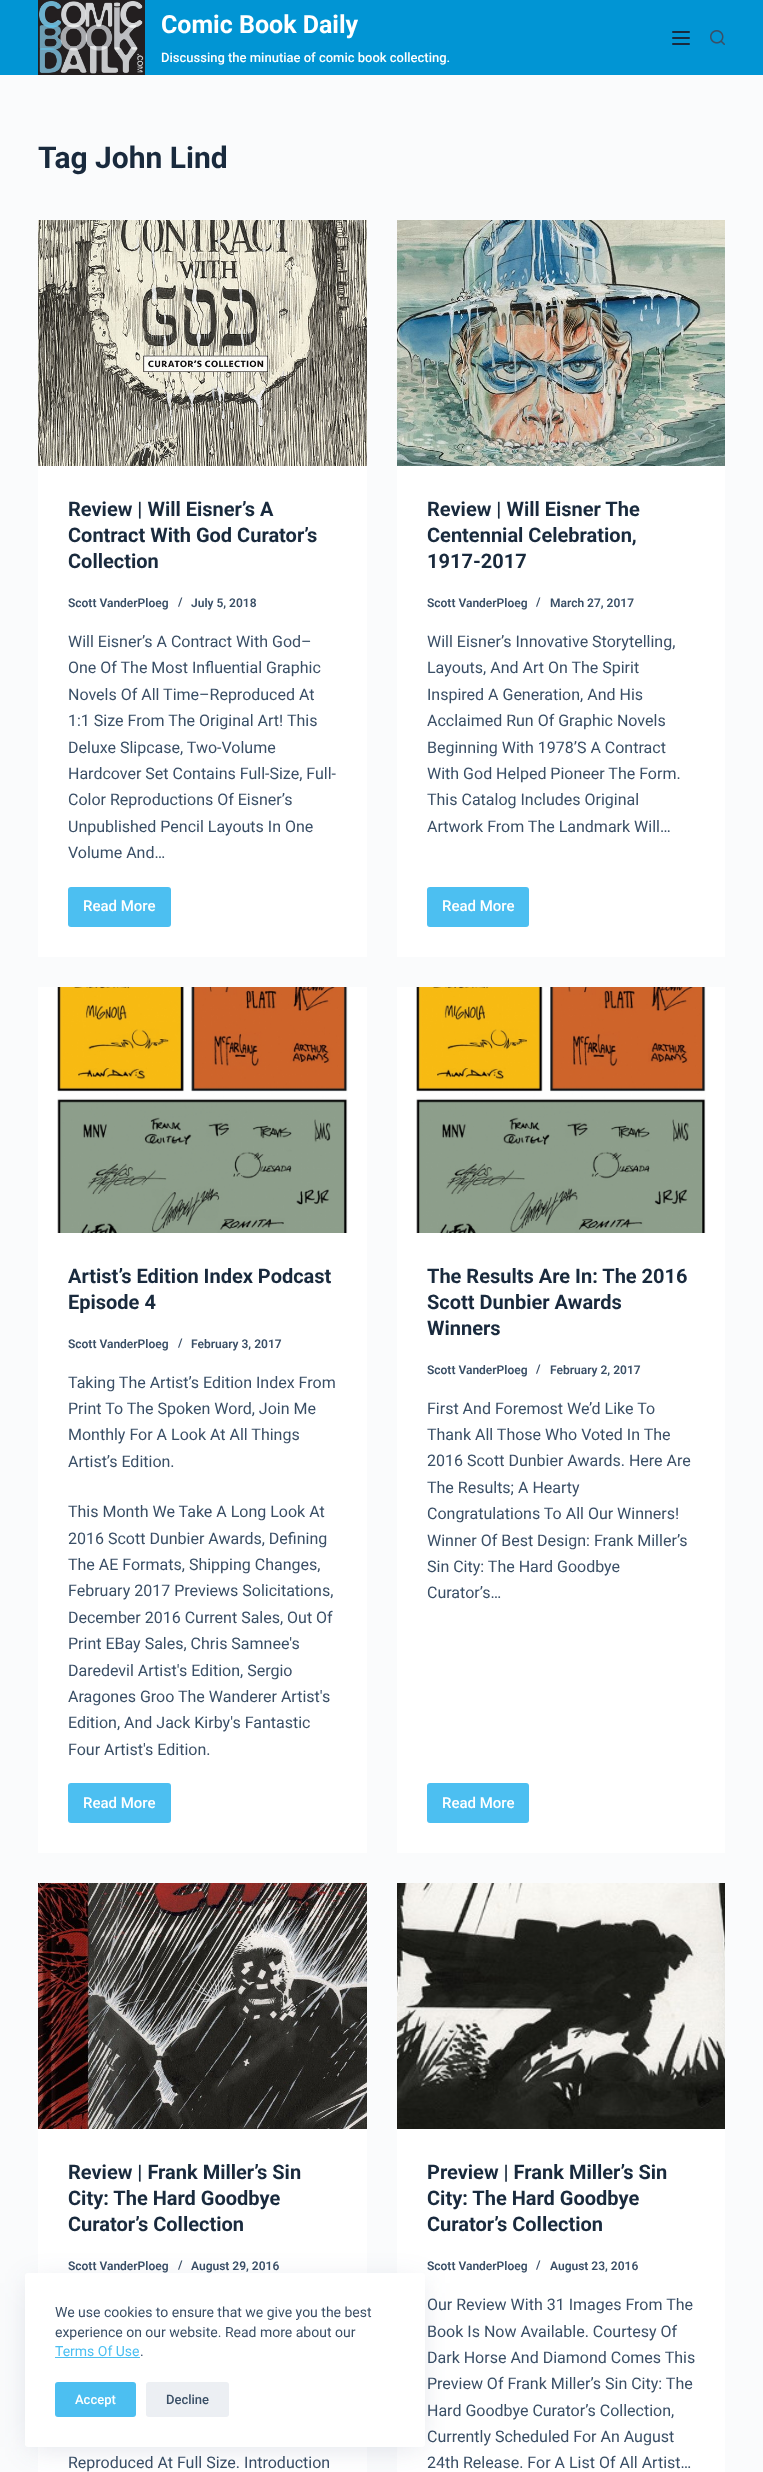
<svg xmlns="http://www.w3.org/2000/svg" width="763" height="2472">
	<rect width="100%" height="100%" fill="#FAFBFC" />
	<rect x="0" y="0" width="763" height="75" fill="#0195D4" />
	<image x="38" y="0" width="107" height="75" href="assets/img1.png" />
	<text x="161" y="33" font-family="Roboto" font-size="25" font-weight="700" fill="#FFFFFF">Comic Book Daily</text>
	<text x="161" y="62" font-family="Roboto" font-size="13" font-weight="500" fill="#FFFFFF">Discussing the minutiae of comic book collecting.</text>
	<rect x="672" y="31" width="18" height="2" rx="1" fill="#192A3D" />
	<rect x="672" y="37" width="18" height="2" rx="1" fill="#192A3D" />
	<rect x="672" y="43" width="18" height="2" rx="1" fill="#192A3D" />
	<image x="710" y="30" width="15" height="15" href="assets/img2.png" />
	<text x="38" y="168" font-family="Roboto" font-size="30" font-weight="700" fill="#192A3D">Tag John Lind</text>
	<rect x="38" y="466" width="329" height="491" fill="#FFFFFF" />
	<image x="38" y="220" width="329" height="246" href="assets/img3.png" />
	<g font-family="Roboto" font-size="20" font-weight="700" fill="#192A3D">
		<text x="68" y="516">Review | Will Eisner’s A</text>
		<text x="68" y="542">Contract With God Curator’s</text>
		<text x="68" y="568">Collection</text>
	</g>
	<g font-family="Roboto" font-size="12" font-weight="600" fill="#3A4F66">
		<text x="68" y="607">Scott VanderPloeg</text>
		<text x="178" y="606">/</text>
		<text x="191" y="607">July 5, 2018</text>
	</g>
	<g font-family="Roboto" font-size="16" fill="#3A4F66">
		<text x="68" y="647">Will Eisner’s A Contract With God–</text>
		<text x="68" y="673">One Of The Most Influential Graphic</text>
		<text x="68" y="700">Novels Of All Time–Reproduced At</text>
		<text x="68" y="726">1:1 Size From The Original Art! This</text>
		<text x="68" y="753">Deluxe Slipcase, Two-Volume</text>
		<text x="68" y="779">Hardcover Set Contains Full-Size, Full-</text>
		<text x="68" y="805">Color Reproductions Of Eisner’s</text>
		<text x="68" y="832">Unpublished Pencil Layouts In One</text>
		<text x="68" y="858">Volume And…</text>
	</g>
	<rect x="68" y="887" width="103" height="40" rx="3" fill="#4CBFF1" />
	<text x="83" y="911" font-family="Roboto" font-size="15" font-weight="500" fill="#FFFFFF">Read More</text>
	<rect x="397" y="466" width="328" height="491" fill="#FFFFFF" />
	<image x="397" y="220" width="328" height="246" href="assets/img4.png" />
	<g font-family="Roboto" font-size="20" font-weight="700" fill="#192A3D">
		<text x="427" y="516">Review | Will Eisner The</text>
		<text x="427" y="542">Centennial Celebration,</text>
		<text x="427" y="568">1917-2017</text>
	</g>
	<g font-family="Roboto" font-size="12" font-weight="600" fill="#3A4F66">
		<text x="427" y="607">Scott VanderPloeg</text>
		<text x="536" y="606">/</text>
		<text x="550" y="607">March 27, 2017</text>
	</g>
	<g font-family="Roboto" font-size="16" fill="#3A4F66">
		<text x="427" y="647">Will Eisner’s Innovative Storytelling,</text>
		<text x="427" y="673">Layouts, And Art On The Spirit</text>
		<text x="427" y="700">Inspired A Generation, And His</text>
		<text x="427" y="726">Acclaimed Run Of Graphic Novels</text>
		<text x="427" y="753">Beginning With 1978’S A Contract</text>
		<text x="427" y="779">With God Helped Pioneer The Form.</text>
		<text x="427" y="805">This Catalog Includes Original</text>
		<text x="427" y="832">Artwork From The Landmark Will…</text>
	</g>
	<rect x="427" y="887" width="102" height="40" rx="3" fill="#4CBFF1" />
	<text x="442" y="911" font-family="Roboto" font-size="15" font-weight="500" fill="#FFFFFF">Read More</text>
	<rect x="38" y="987" width="329" height="866" fill="#FFFFFF" />
	<image x="57" y="987" width="291" height="246" href="assets/img5.png" />
	<g font-family="Roboto" font-size="20" font-weight="700" fill="#192A3D">
		<text x="68" y="1283">Artist’s Edition Index Podcast</text>
		<text x="68" y="1309">Episode 4</text>
	</g>
	<g font-family="Roboto" font-size="12" font-weight="600" fill="#3A4F66">
		<text x="68" y="1348">Scott VanderPloeg</text>
		<text x="178" y="1347">/</text>
		<text x="191" y="1348">February 3, 2017</text>
	</g>
	<g font-family="Roboto" font-size="16" fill="#3A4F66">
		<text x="68" y="1388">Taking The Artist’s Edition Index From</text>
		<text x="68" y="1414">Print To The Spoken Word, Join Me</text>
		<text x="68" y="1440">Monthly For A Look At All Things</text>
		<text x="68" y="1467">Artist’s Edition.</text>
		<text x="68" y="1517">This Month We Take A Long Look At</text>
		<text x="68" y="1544">2016 Scott Dunbier Awards, Defining</text>
		<text x="68" y="1570">The AE Formats, Shipping Changes,</text>
		<text x="68" y="1596">February 2017 Previews Solicitations,</text>
		<text x="68" y="1623">December 2016 Current Sales, Out Of</text>
		<text x="68" y="1649">Print EBay Sales, Chris Samnee's</text>
		<text x="68" y="1676">Daredevil Artist's Edition, Sergio</text>
		<text x="68" y="1702">Aragones Groo The Wanderer Artist's</text>
		<text x="68" y="1728">Edition, And Jack Kirby's Fantastic</text>
		<text x="68" y="1755">Four Artist's Edition.</text>
	</g>
	<rect x="68" y="1783" width="103" height="40" rx="3" fill="#4CBFF1" />
	<text x="83" y="1808" font-family="Roboto" font-size="15" font-weight="500" fill="#FFFFFF">Read More</text>
	<rect x="397" y="987" width="328" height="866" fill="#FFFFFF" />
	<image x="416" y="987" width="290" height="246" href="assets/img6.png" />
	<g font-family="Roboto" font-size="20" font-weight="700" fill="#192A3D">
		<text x="427" y="1283">The Results Are In: The 2016</text>
		<text x="427" y="1309">Scott Dunbier Awards</text>
		<text x="427" y="1335">Winners</text>
	</g>
	<g font-family="Roboto" font-size="12" font-weight="600" fill="#3A4F66">
		<text x="427" y="1374">Scott VanderPloeg</text>
		<text x="536" y="1373">/</text>
		<text x="550" y="1374">February 2, 2017</text>
	</g>
	<g font-family="Roboto" font-size="16" fill="#3A4F66">
		<text x="427" y="1414">First And Foremost We’d Like To</text>
		<text x="427" y="1440">Thank All Those Who Voted In The</text>
		<text x="427" y="1466">2016 Scott Dunbier Awards. Here Are</text>
		<text x="427" y="1493">The Results; A Hearty</text>
		<text x="427" y="1519">Congratulations To All Our Winners!</text>
		<text x="427" y="1546">Winner Of Best Design: Frank Miller’s</text>
		<text x="427" y="1572">Sin City: The Hard Goodbye</text>
		<text x="427" y="1598">Curator’s…</text>
	</g>
	<rect x="427" y="1783" width="102" height="40" rx="3" fill="#4CBFF1" />
	<text x="442" y="1808" font-family="Roboto" font-size="15" font-weight="500" fill="#FFFFFF">Read More</text>
	<rect x="38" y="2129" width="329" height="343" fill="#FFFFFF" />
	<image x="38" y="1883" width="329" height="246" href="assets/img7.png" />
	<g font-family="Roboto" font-size="20" font-weight="700" fill="#192A3D">
		<text x="68" y="2179">Review | Frank Miller’s Sin</text>
		<text x="68" y="2205">City: The Hard Goodbye</text>
		<text x="68" y="2231">Curator’s Collection</text>
	</g>
	<g font-family="Roboto" font-size="12" font-weight="600" fill="#3A4F66">
		<text x="68" y="2270">Scott VanderPloeg</text>
		<text x="178" y="2269">/</text>
		<text x="191" y="2270">August 29, 2016</text>
	</g>
	<text x="68" y="2468" font-family="Roboto" font-size="16" fill="#3A4F66">Reproduced At Full Size. Introduction</text>
	<rect x="397" y="2129" width="328" height="343" fill="#FFFFFF" />
	<image x="397" y="1883" width="328" height="246" href="assets/img8.png" />
	<g font-family="Roboto" font-size="20" font-weight="700" fill="#192A3D">
		<text x="427" y="2179">Preview | Frank Miller’s Sin</text>
		<text x="427" y="2205">City: The Hard Goodbye</text>
		<text x="427" y="2231">Curator’s Collection</text>
	</g>
	<g font-family="Roboto" font-size="12" font-weight="600" fill="#3A4F66">
		<text x="427" y="2270">Scott VanderPloeg</text>
		<text x="536" y="2269">/</text>
		<text x="550" y="2270">August 23, 2016</text>
	</g>
	<g font-family="Roboto" font-size="16" fill="#3A4F66">
		<text x="427" y="2310">Our Review With 31 Images From The</text>
		<text x="427" y="2337">Book Is Now Available. Courtesy Of</text>
		<text x="427" y="2363">Dark Horse And Diamond Comes This</text>
		<text x="427" y="2389">Preview Of Frank Miller’s Sin City: The</text>
		<text x="427" y="2416">Hard Goodbye Curator’s Collection,</text>
		<text x="427" y="2442">Currently Scheduled For An August</text>
		<text x="427" y="2468">24th Release. For A List Of All Artist…</text>
	</g>
	<rect x="30" y="2283" width="390" height="164" fill="#223865" fill-opacity="0.15" filter="blur(15px)" />
	<rect x="25" y="2273" width="400" height="174" rx="3" fill="#FFFFFF" />
	<g font-family="Roboto" font-size="14" fill="#3A4F66">
		<text x="55" y="2317">We use cookies to ensure that we give you the best</text>
		<text x="55" y="2337">experience on our website. Read more about our</text>
	</g>
	<text x="55" y="2356" font-family="Roboto" font-size="14" fill="#4CBFF1">Terms Of Use</text>
	<rect x="55" y="2357" width="85" height="1" fill="#4CBFF1" />
	<text x="140" y="2356" font-family="Roboto" font-size="14" fill="#3A4F66">.</text>
	<rect x="55" y="2382" width="81" height="35" rx="3" fill="#4CBFF1" />
	<text x="75" y="2404" font-family="Roboto" font-size="13" font-weight="500" fill="#FFFFFF">Accept</text>
	<rect x="146" y="2382" width="83" height="35" rx="3" fill="#ECEFF3" />
	<text x="166" y="2404" font-family="Roboto" font-size="13" font-weight="500" fill="#3A4F66">Decline</text>
</svg>
